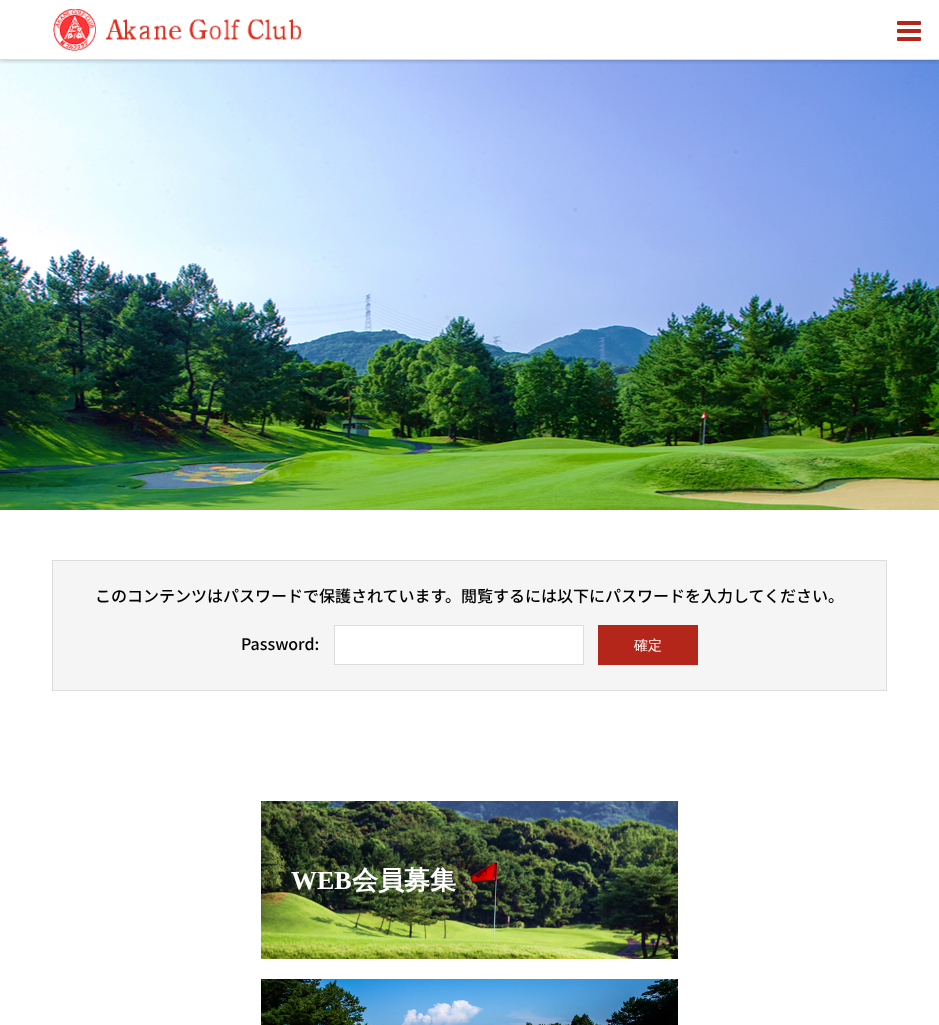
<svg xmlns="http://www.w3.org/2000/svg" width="939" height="1025">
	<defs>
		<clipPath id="clip1"><rect x="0" y="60" width="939" height="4" /></clipPath>
	</defs>
	<rect width="100%" height="100%" fill="#FFFFFF" />
	<image x="0" y="60" width="939" height="450" href="assets/img3.png" />
	<g clip-path="url(#clip1)">
		<rect x="0" y="0" width="939" height="60" fill="#000000" fill-opacity="0.3" filter="blur(2.5px)" />
	</g>
	<rect x="0" y="59" width="939" height="1" fill="#DDDDDD" />
	<image x="53" y="9" width="248" height="42" href="assets/img1.png" />
	<image x="897" y="21" width="24" height="20" href="assets/img2.png" />
	<rect x="52.5" y="560.5" width="834" height="130" fill="#F5F5F5" stroke="#DDDDDD" />
	<g font-family="Noto Sans JP" font-size="16" font-weight="100" fill="#000000">
		<text x="95" y="602">このコンテンツはパスワードで保護されています。閲覧するには以下にパスワードを入力してください。</text>
		<text x="241" y="650">Password:</text>
	</g>
	<rect x="334.5" y="625.5" width="249" height="39" fill="#FFFFFF" stroke="#DDDDDD" />
	<rect x="598" y="625" width="100" height="40" fill="#B32619" />
	<text x="634" y="650" font-family="WenQuanYi Zen Hei" font-size="14" font-weight="500" fill="#FFFFFF">確定</text>
	<image x="261" y="801" width="417" height="158" href="assets/img4.png" />
	<text x="291" y="889" font-family="Liberation Serif" font-size="26" font-weight="700" fill="#FFFFFF">WEB</text>
	<text x="352" y="889" font-family="WenQuanYi Zen Hei" font-size="26" font-weight="700" fill="#FFFFFF">会員募集</text>
	<image x="261" y="979" width="417" height="46" href="assets/img5.png" />
</svg>
